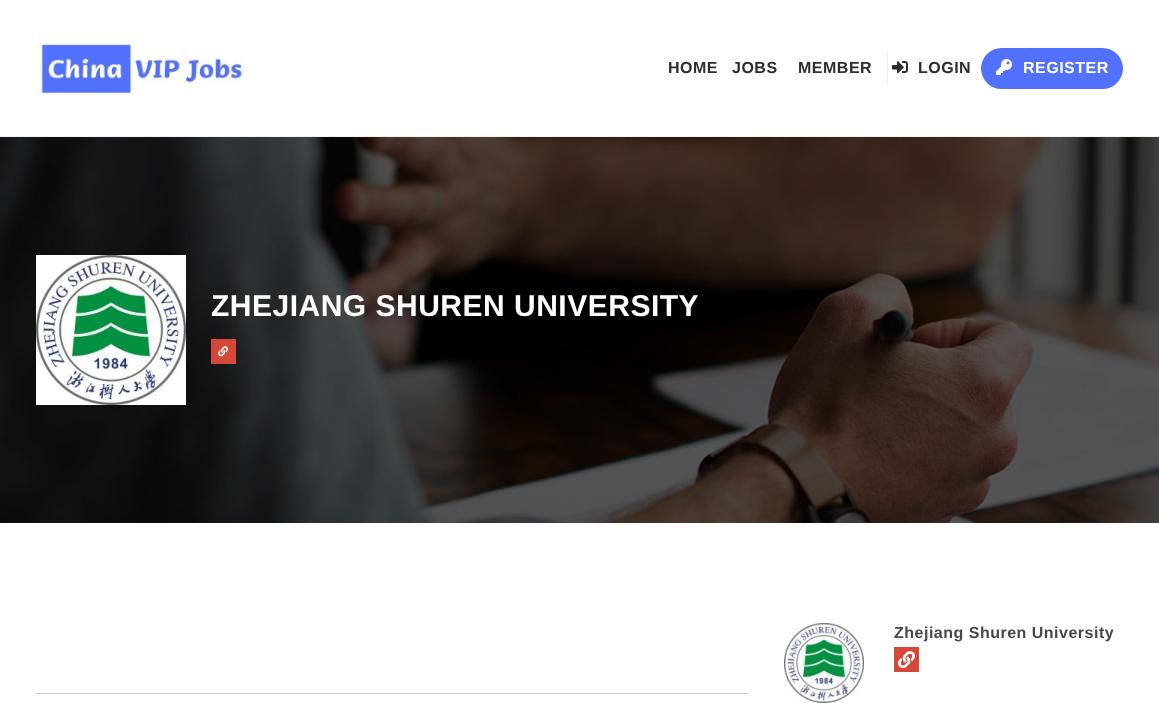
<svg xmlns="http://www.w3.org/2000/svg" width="1159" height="703">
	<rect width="100%" height="100%" fill="#FFFFFF" />
	<rect x="0" y="136" width="1159" height="1" fill="#F2F2F2" />
	<image x="36" y="43" width="208" height="52" href="assets/img1.png" />
	<g font-family="Liberation Sans" font-size="16" font-weight="700" letter-spacing="0.5" fill="#2E2E2E">
		<text x="668" y="73">HOME</text>
		<text x="732" y="73">JOBS</text>
		<text x="798" y="73">MEMBER</text>
	</g>
	<rect x="887" y="51" width="1" height="34" fill="#EBEEEF" />
	<image x="892" y="61" width="16" height="13" href="assets/img2.png" />
	<text x="918" y="73" font-family="Liberation Sans" font-size="16" font-weight="700" letter-spacing="0.5" fill="#2E2E2E">LOGIN</text>
	<rect x="981" y="48" width="142" height="41" rx="20.5" fill="#5271FF" />
	<image x="996" y="59" width="16" height="16" href="assets/img3.png" />
	<text x="1023" y="73" font-family="Liberation Sans" font-size="16" font-weight="700" letter-spacing="0.5" fill="#FFFFFF">REGISTER</text>
	<image x="0" y="137" width="1159" height="386" href="assets/img4.png" />
	<image x="36" y="255" width="150" height="150" href="assets/img5.png" />
	<text x="211" y="316" font-family="Liberation Sans" font-size="30" font-weight="700" letter-spacing="0.5" fill="#FFFFFF">ZHEJIANG SHUREN UNIVERSITY</text>
	<rect x="211" y="339" width="25" height="25" fill="#D34836" />
	<image x="218" y="346" width="10" height="11" href="assets/img6.png" />
	<image x="784" y="623" width="80" height="80" href="assets/img7.png" />
	<text x="894" y="638" font-family="Liberation Sans" font-size="16" font-weight="700" letter-spacing="0.5" fill="#44494B">Zhejiang Shuren University</text>
	<rect x="894" y="647" width="25" height="25" fill="#D34836" />
	<image x="898" y="651" width="17" height="18" href="assets/img8.png" />
	<rect x="36" y="693" width="712" height="1" fill="#CCCCCC" />
</svg>
